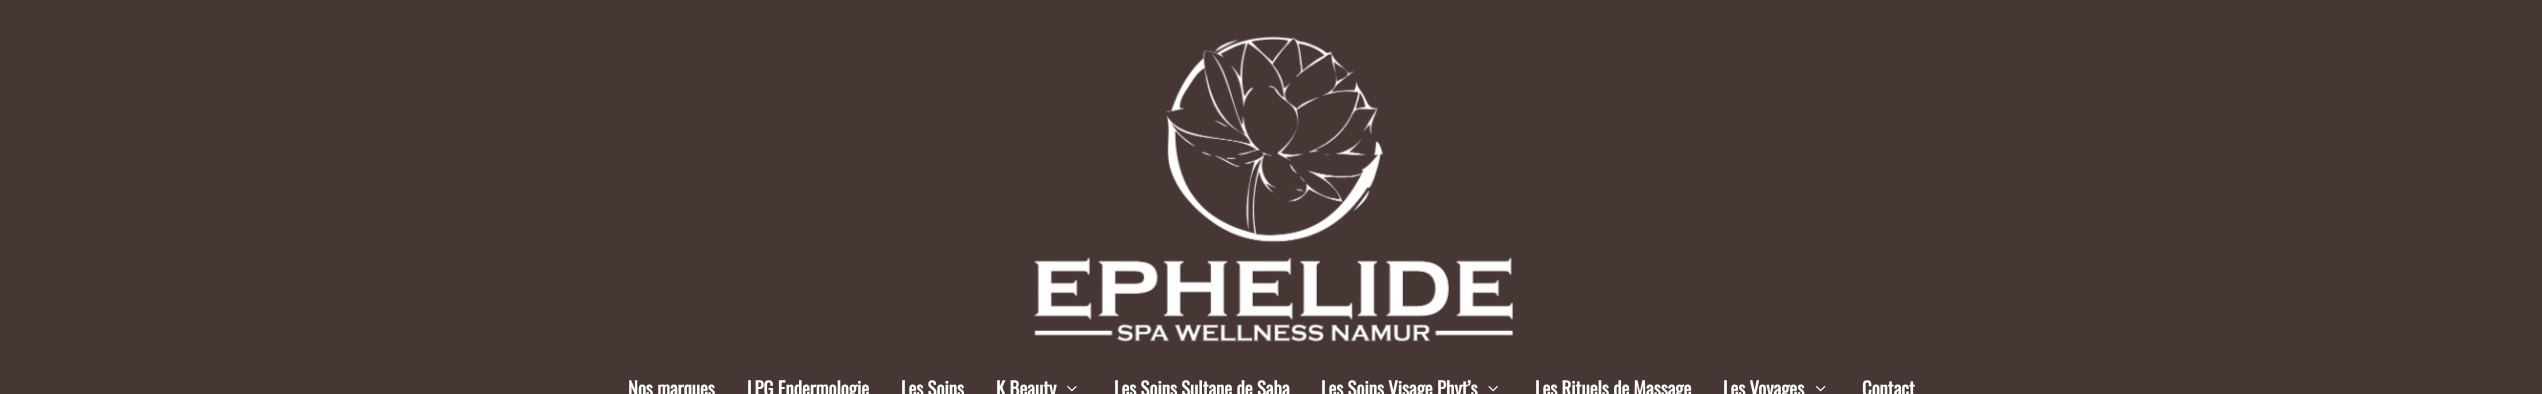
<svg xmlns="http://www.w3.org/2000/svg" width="2542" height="394">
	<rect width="100%" height="100%" fill="#473734" />
	<image x="1034" y="36" width="479" height="306" href="assets/img1.png" />
	<g font-family="Oswald" font-size="18.75" font-weight="700" fill="#FFFFFF">
		<text x="628" y="396">Nos marques</text>
		<text x="747" y="396">LPG Endermologie</text>
		<text x="901" y="396">Les Soins</text>
		<text x="996" y="396">K Beauty</text>
	</g>
	<image x="1067" y="386" width="10" height="6" href="assets/img2.png" />
	<g font-family="Oswald" font-size="18.75" font-weight="700" fill="#FFFFFF">
		<text x="1114" y="396">Les Soins Sultane de Saba</text>
		<text x="1321" y="396">Les Soins Visage Phyt’s</text>
	</g>
	<image x="1488" y="386" width="10" height="6" href="assets/img3.png" />
	<g font-family="Oswald" font-size="18.75" font-weight="700" fill="#FFFFFF">
		<text x="1535" y="396">Les Rituels de Massage</text>
		<text x="1723" y="396">Les Voyages</text>
	</g>
	<image x="1816" y="386" width="10" height="6" href="assets/img4.png" />
	<text x="1862" y="396" font-family="Oswald" font-size="18.75" font-weight="700" fill="#FFFFFF">Contact</text>
</svg>
